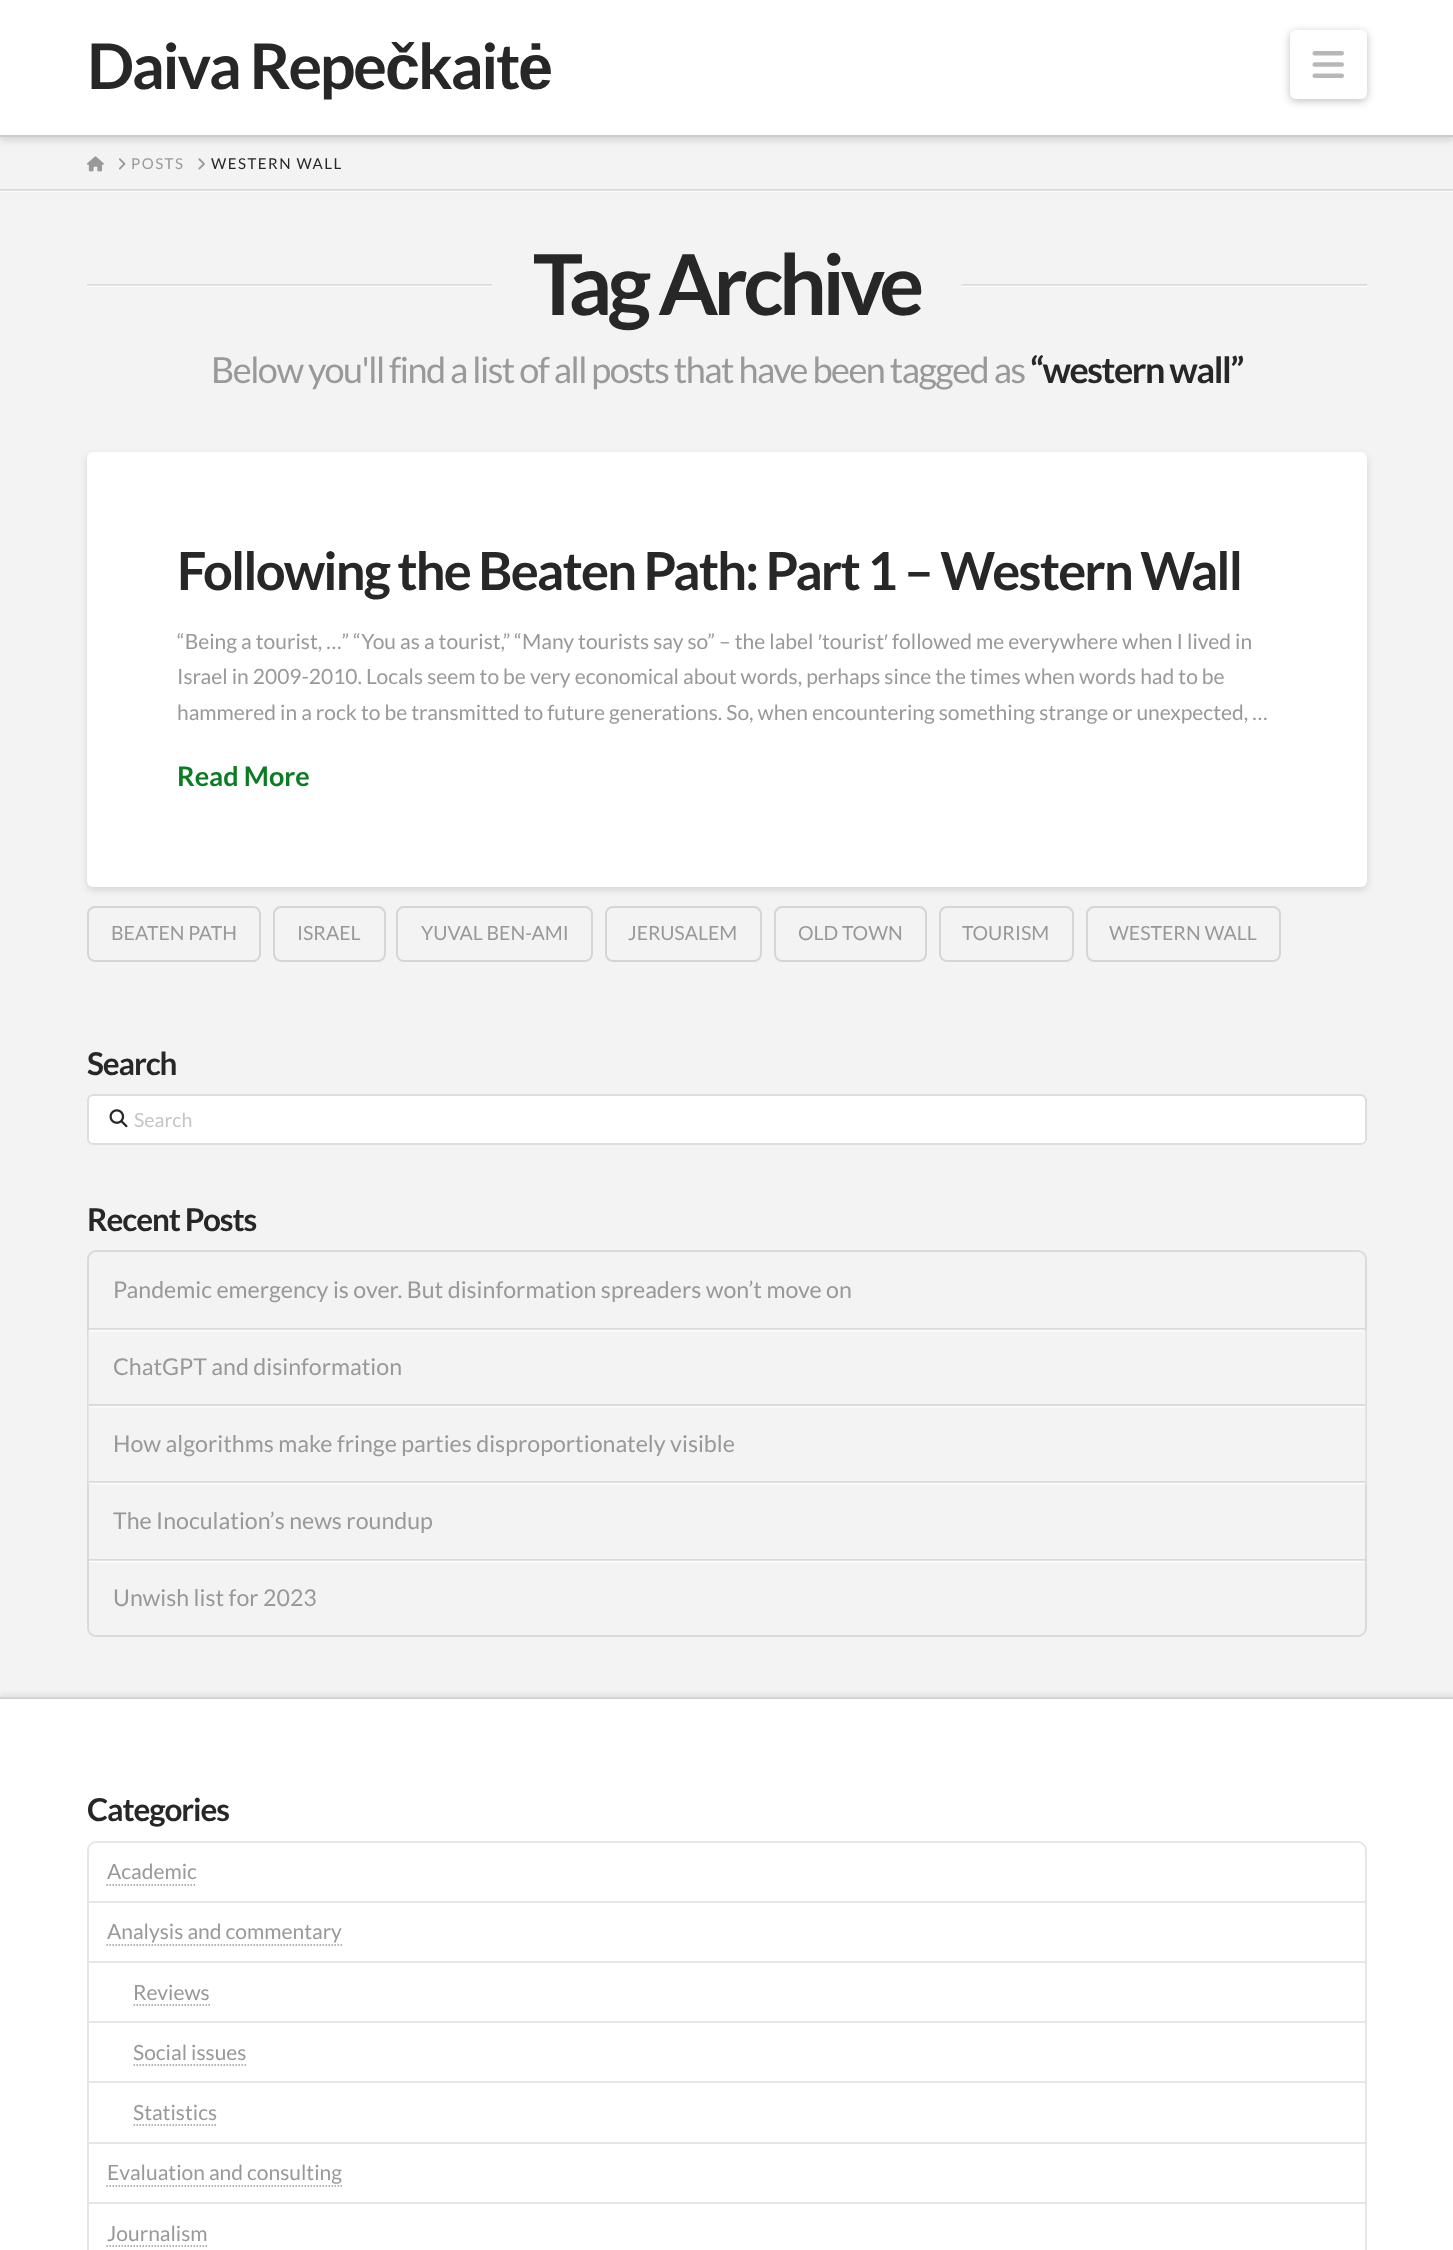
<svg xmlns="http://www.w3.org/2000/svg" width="1453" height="2250">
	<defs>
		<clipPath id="clip1"><rect x="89" y="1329" width="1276" height="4" /></clipPath>
		<clipPath id="clip2"><path d="M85 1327H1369V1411H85ZM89 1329H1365V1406H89Z" clip-rule="evenodd" /></clipPath>
		<clipPath id="clip3"><path d="M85 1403H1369V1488H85ZM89 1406H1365V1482H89Z" clip-rule="evenodd" /></clipPath>
		<clipPath id="clip4"><rect x="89" y="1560" width="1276" height="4" /></clipPath>
	</defs>
	<rect width="100%" height="100%" fill="#F3F3F3" />
	<rect x="962" y="284" width="405" height="1" fill="#DBDBDB" />
	<rect x="87" y="284" width="405" height="1" fill="#DBDBDB" />
	<rect x="0" y="3" width="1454" height="137" fill="#000000" fill-opacity="0.13" filter="blur(3.5px)" />
	<rect x="0" y="0" width="1453" height="135" fill="#FFFFFF" />
	<rect x="0" y="135" width="1453" height="2" fill="#CCCCCC" />
	<text x="87" y="89" font-family="Lato" font-size="63" font-weight="700" letter-spacing="-2.25" fill="#272727">Daiva Repe</text>
	<text x="385" y="89" font-family="Liberation Sans" font-size="63" font-weight="700" letter-spacing="-2.25" fill="#272727">č</text>
	<text x="418" y="89" font-family="Lato" font-size="63" font-weight="700" letter-spacing="-2.25" fill="#272727">kait</text>
	<text x="518" y="89" font-family="Liberation Sans" font-size="63" font-weight="700" letter-spacing="-2.25" fill="#272727">ė</text>
	<rect x="1290" y="32" width="77" height="69" rx="6" fill="#000000" fill-opacity="0.25" filter="blur(4px)" />
	<rect x="1290" y="30" width="77" height="69" rx="6" fill="#FFFFFF" />
	<image x="1312" y="51" width="32" height="27" href="assets/img1.png" />
	<path d="M0 190V192H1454V138V190Z" fill="#FCFCFC" />
	<rect x="0" y="189" width="1453" height="2" fill="#000000" fill-opacity="0.1" />
	<image x="87" y="156" width="17" height="16" href="assets/img2.png" />
	<image x="119" y="158" width="7" height="12" href="assets/img3.png" />
	<text x="131" y="169" font-family="Lato" font-size="15" letter-spacing="1.5" fill="#999999">POSTS</text>
	<image x="198" y="158" width="7" height="12" href="assets/img4.png" />
	<text x="211" y="169" font-family="Lato" font-size="15" letter-spacing="1.5" fill="#272727">WESTERN WALL</text>
	<rect x="87" y="286" width="405" height="1" fill="#FDFDFD" />
	<rect x="87" y="285" width="405" height="1" fill="#E4E4E4" />
	<text x="533" y="315" font-family="Lato" font-size="84" font-weight="700" letter-spacing="-4.5" fill="#272727">Tag Archive</text>
	<rect x="962" y="286" width="405" height="1" fill="#FDFDFD" />
	<rect x="962" y="285" width="405" height="1" fill="#E4E4E4" />
	<text x="211" y="383" font-family="Lato" font-size="36" letter-spacing="-1.5" fill="#999999">Below you'll find a list of all posts that have been tagged as</text>
	<text x="1030" y="383" font-family="Lato" font-size="36" font-weight="700" letter-spacing="-1.5" fill="#272727">“western wall”</text>
	<rect x="87" y="455" width="1280" height="435" rx="6" fill="#000000" fill-opacity="0.13" filter="blur(3.5px)" />
	<rect x="87" y="452" width="1280" height="435" rx="6" fill="#FFFFFF" />
	<text x="177" y="590" font-family="Lato" font-size="52.5" font-weight="700" letter-spacing="-1.85" fill="#272727">Following the Beaten Path: Part 1 – Western Wall</text>
	<text x="177" y="649" font-family="Lato" font-size="21" fill="#999999">“Being a tourist, …” “You as a tourist,” “Many tourists say so” – the label</text>
	<text x="818" y="649" font-family="Liberation Sans" font-size="21" fill="#999999">′</text>
	<text x="822" y="649" font-family="Lato" font-size="21" fill="#999999">tourist</text>
	<text x="884" y="649" font-family="Liberation Sans" font-size="21" fill="#999999">′</text>
	<g font-family="Lato" font-size="21" fill="#999999">
		<text x="892" y="649">followed me everywhere when I lived in</text>
		<text x="177" y="684">Israel in 2009-2010. Locals seem to be very economical about words, perhaps since the times when words had to be</text>
		<text x="177" y="720">hammered in a rock to be transmitted to future generations. So, when encountering something strange or unexpected, …</text>
	</g>
	<text x="177" y="786" font-family="Lato" font-size="27" font-weight="700" fill="#0C7C24">Read More</text>
	<rect x="88" y="907" width="172" height="54" rx="7" fill="none" stroke="#000000" stroke-opacity="0.12" stroke-width="2" />
	<text x="111" y="940" font-family="Lato" font-size="19.5" fill="#999999">BEATEN PATH</text>
	<rect x="274" y="907" width="111" height="54" rx="7" fill="none" stroke="#000000" stroke-opacity="0.12" stroke-width="2" />
	<text x="297" y="940" font-family="Lato" font-size="19.5" fill="#999999">ISRAEL</text>
	<rect x="397" y="907" width="195" height="54" rx="7" fill="none" stroke="#000000" stroke-opacity="0.12" stroke-width="2" />
	<text x="421" y="940" font-family="Lato" font-size="19.5" fill="#999999">YUVAL BEN-AMI</text>
	<rect x="606" y="907" width="155" height="54" rx="7" fill="none" stroke="#000000" stroke-opacity="0.12" stroke-width="2" />
	<text x="628" y="940" font-family="Lato" font-size="19.5" fill="#999999">JERUSALEM</text>
	<rect x="775" y="907" width="151" height="54" rx="7" fill="none" stroke="#000000" stroke-opacity="0.12" stroke-width="2" />
	<text x="798" y="940" font-family="Lato" font-size="19.5" fill="#999999">OLD TOWN</text>
	<rect x="940" y="907" width="133" height="54" rx="7" fill="none" stroke="#000000" stroke-opacity="0.12" stroke-width="2" />
	<text x="962" y="940" font-family="Lato" font-size="19.5" fill="#999999">TOURISM</text>
	<rect x="1087" y="907" width="193" height="54" rx="7" fill="none" stroke="#000000" stroke-opacity="0.12" stroke-width="2" />
	<text x="1109" y="940" font-family="Lato" font-size="19.5" fill="#999999">WESTERN WALL</text>
	<text x="87" y="1075" font-family="Lato" font-size="31.5" font-weight="700" letter-spacing="-1.1" fill="#272727">Search</text>
	<rect x="87" y="1094" width="1280" height="51" rx="6" fill="#FFFFFF" />
	<path d="M93 1096H1360C1363 1096 1365 1099 1365 1101V1100C1365 1097 1363 1095 1360 1095H94C92 1095 90 1096 89 1098C90 1097 92 1096 93 1096Z" fill="#ECECEC" />
	<rect x="88" y="1095" width="1278" height="49" rx="5" fill="none" stroke="#DDDDDD" stroke-width="2" />
	<image x="109" y="1109" width="19" height="19" href="assets/img5.png" />
	<text x="134" y="1127" font-family="Lato" font-size="19.5" fill="#C5C5C5">Search</text>
	<text x="87" y="1231" font-family="Lato" font-size="31.5" font-weight="700" letter-spacing="-1.1" fill="#272727">Recent Posts</text>
	<rect x="88" y="1251" width="1278" height="385" rx="8" fill="none" stroke="#000000" stroke-opacity="0.1" stroke-width="2" />
	<g clip-path="url(#clip1)">
		<rect x="89" y="1253" width="1276" height="78" fill="#FFFFFF" fill-opacity="0.95" filter="blur(1px)" />
	</g>
	<rect x="89" y="1328" width="1276" height="2" fill="#000000" fill-opacity="0.1" />
	<text x="113" y="1298" font-family="Lato" font-size="23.15" fill="#999999">Pandemic emergency is over. But disinformation spreaders won’t move on</text>
	<g clip-path="url(#clip2)">
		<rect x="89" y="1331" width="1276" height="76" fill="#FFFFFF" fill-opacity="0.95" filter="blur(1px)" />
	</g>
	<rect x="89" y="1404" width="1276" height="2" fill="#000000" fill-opacity="0.1" />
	<text x="113" y="1375" font-family="Lato" font-size="23.15" fill="#999999">ChatGPT and disinformation</text>
	<g clip-path="url(#clip3)">
		<rect x="89" y="1407" width="1276" height="77" fill="#FFFFFF" fill-opacity="0.95" filter="blur(1px)" />
	</g>
	<rect x="89" y="1481" width="1276" height="2" fill="#000000" fill-opacity="0.1" />
	<text x="113" y="1452" font-family="Lato" font-size="23.15" fill="#999999">How algorithms make fringe parties disproportionately visible</text>
	<g clip-path="url(#clip4)">
		<rect x="89" y="1484" width="1276" height="78" fill="#FFFFFF" fill-opacity="0.95" filter="blur(1px)" />
	</g>
	<rect x="89" y="1559" width="1276" height="2" fill="#000000" fill-opacity="0.1" />
	<g font-family="Lato" font-size="23.15" fill="#999999">
		<text x="113" y="1529">The Inoculation’s news roundup</text>
		<text x="113" y="1606">Unwish list for 2023</text>
	</g>
	<rect x="0" y="1694" width="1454" height="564" fill="#000000" fill-opacity="0.07" filter="blur(2.5px)" />
	<rect x="0" y="1699" width="1453" height="551" fill="#FFFFFF" />
	<rect x="0" y="1697" width="1453" height="2" fill="#D4D4D4" />
	<text x="87" y="1821" font-family="Lato" font-size="31.5" font-weight="700" letter-spacing="-1.1" fill="#272727">Categories</text>
	<rect x="88" y="1842" width="1278" height="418" rx="8" fill="none" stroke="#E6E6E6" stroke-width="2" />
	<rect x="89" y="1901" width="1276" height="2" fill="#E6E6E6" />
	<text x="107" y="1879" font-family="Lato" font-size="21" fill="#999999">Academic</text>
	<path d="M106.5 1885H196.5" fill="none" stroke="#999999" stroke-width="1.5" stroke-dasharray="1.5 1.5" />
	<rect x="89" y="2142" width="1276" height="2" fill="#E6E6E6" />
	<text x="107" y="1939" font-family="Lato" font-size="21" fill="#999999">Analysis and commentary</text>
	<path d="M106.5 1945H342" fill="none" stroke="#999999" stroke-width="1.5" stroke-dasharray="1.5 1.5" />
	<rect x="89" y="1961" width="1276" height="2" fill="#E6E6E6" />
	<rect x="89" y="2021" width="1276" height="2" fill="#E6E6E6" />
	<text x="133" y="2000" font-family="Lato" font-size="21" fill="#999999">Reviews</text>
	<path d="M133.5 2005H210" fill="none" stroke="#999999" stroke-width="1.5" stroke-dasharray="1.5 1.5" />
	<rect x="89" y="2081" width="1276" height="2" fill="#E6E6E6" />
	<text x="133" y="2060" font-family="Lato" font-size="21" fill="#999999">Social issues</text>
	<path d="M133.5 2065H246" fill="none" stroke="#999999" stroke-width="1.5" stroke-dasharray="1.5 1.5" />
	<text x="133" y="2120" font-family="Lato" font-size="21" fill="#999999">Statistics</text>
	<path d="M133.5 2125H217.5" fill="none" stroke="#999999" stroke-width="1.5" stroke-dasharray="1.5 1.5" />
	<rect x="89" y="2202" width="1276" height="2" fill="#E6E6E6" />
	<text x="107" y="2180" font-family="Lato" font-size="21" fill="#999999">Evaluation and consulting</text>
	<path d="M106.5 2186H342" fill="none" stroke="#999999" stroke-width="1.5" stroke-dasharray="1.5 1.5" />
	<text x="107" y="2241" font-family="Lato" font-size="21" fill="#999999">Journalism</text>
	<path d="M106.5 2246H207" fill="none" stroke="#999999" stroke-width="1.5" stroke-dasharray="1.5 1.5" />
</svg>
